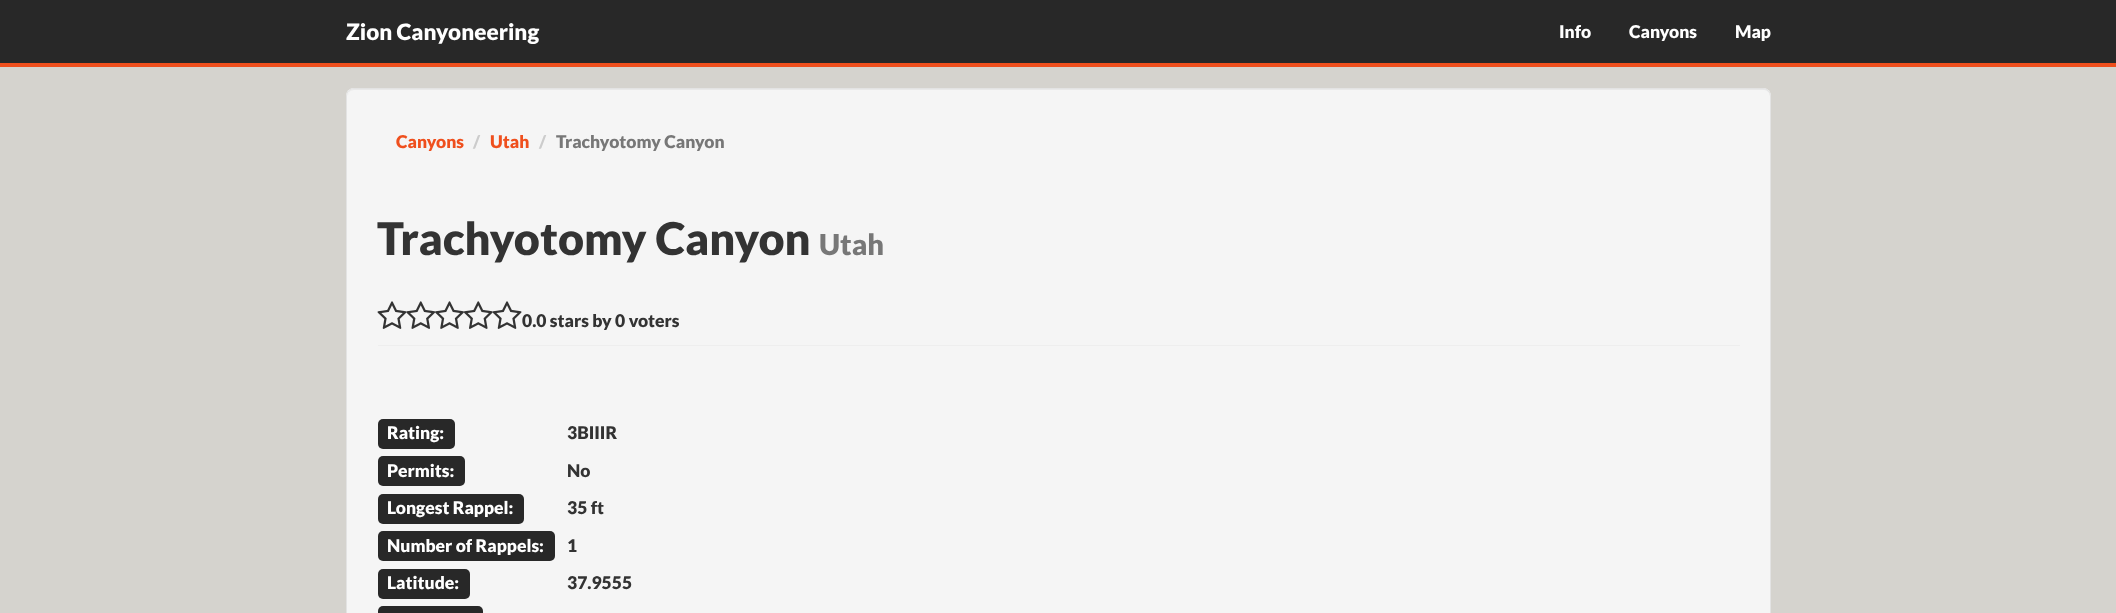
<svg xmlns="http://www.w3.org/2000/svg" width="2116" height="613">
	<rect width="100%" height="100%" fill="#D5D3CE" />
	<rect x="0" y="0" width="2116" height="63" fill="#282828" />
	<rect x="0" y="63" width="2116" height="4" fill="#EF4F1D" />
	<text x="346" y="40" font-family="Lato" font-size="22.5" font-weight="900" fill="#FFFFFF">Zion Canyoneering</text>
	<g font-family="Lato" font-size="17.5" font-weight="900" fill="#FFFFFF">
		<text x="1559" y="38">Info</text>
		<text x="1629" y="38">Canyons</text>
		<text x="1735" y="38">Map</text>
	</g>
	<rect x="346" y="88" width="1425" height="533" rx="8" fill="#F5F5F5" />
	<path d="M354 90H1764C1767 90 1770 93 1770 96C1770 92 1768 89 1764 89H354C350 89 348 92 348 96C348 93 350 90 354 90Z" fill="#E9E9E9" />
	<rect x="346.5" y="88.5" width="1424" height="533" rx="7.5" fill="none" stroke="#E3E3E3" />
	<text x="396" y="148" font-family="Lato" font-size="17.5" font-weight="900" fill="#EF4F1D">Canyons</text>
	<text x="473" y="148" font-family="Lato" font-size="17.5" font-weight="900" fill="#CCCCCC">/</text>
	<text x="490" y="148" font-family="Lato" font-size="17.5" font-weight="900" fill="#EF4F1D">Utah</text>
	<text x="539" y="148" font-family="Lato" font-size="17.5" font-weight="900" fill="#CCCCCC">/</text>
	<text x="556" y="148" font-family="Lato" font-size="17.5" font-weight="900" fill="#777777">Trachyotomy Canyon</text>
	<rect x="378" y="345" width="1362" height="1" fill="#EEEEEE" />
	<text x="377" y="255" font-family="Lato" font-size="45" font-weight="900" fill="#333333">Trachyotomy Canyon</text>
	<text x="819" y="255" font-family="Lato" font-size="29" font-weight="900" fill="#777777">Utah</text>
	<image x="377" y="301" width="30" height="28" href="assets/img1.png" />
	<image x="406" y="301" width="30" height="28" href="assets/img2.png" />
	<image x="435" y="301" width="29" height="28" href="assets/img3.png" />
	<image x="463" y="301" width="30" height="28" href="assets/img4.png" />
	<image x="492" y="301" width="30" height="28" href="assets/img5.png" />
	<text x="522" y="327" font-family="Lato" font-size="17.5" font-weight="900" fill="#333333">0.0 stars by 0 voters</text>
	<rect x="378" y="419" width="77" height="30" rx="5" fill="#282828" />
	<text x="387" y="439" font-family="Lato" font-size="17.5" font-weight="900" fill="#FFFFFF">Rating:</text>
	<text x="567" y="439" font-family="Lato" font-size="17.5" font-weight="900" fill="#333333">3BIIIR</text>
	<rect x="378" y="456" width="87" height="30" rx="5" fill="#282828" />
	<text x="387" y="477" font-family="Lato" font-size="17.5" font-weight="900" fill="#FFFFFF">Permits:</text>
	<text x="567" y="477" font-family="Lato" font-size="17.5" font-weight="900" fill="#333333">No</text>
	<rect x="378" y="494" width="146" height="30" rx="5" fill="#282828" />
	<text x="387" y="514" font-family="Lato" font-size="17.5" font-weight="900" fill="#FFFFFF">Longest Rappel:</text>
	<text x="567" y="514" font-family="Lato" font-size="17.5" font-weight="900" fill="#333333">35 ft</text>
	<rect x="378" y="531" width="177" height="30" rx="5" fill="#282828" />
	<text x="387" y="552" font-family="Lato" font-size="17.5" font-weight="900" fill="#FFFFFF">Number of Rappels:</text>
	<text x="567" y="552" font-family="Lato" font-size="17.5" font-weight="900" fill="#333333">1</text>
	<rect x="378" y="569" width="92" height="30" rx="5" fill="#282828" />
	<text x="387" y="589" font-family="Lato" font-size="17.5" font-weight="900" fill="#FFFFFF">Latitude:</text>
	<text x="567" y="589" font-family="Lato" font-size="17.5" font-weight="900" fill="#333333">37.9555</text>
	<rect x="378" y="606" width="105" height="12" rx="5" fill="#282828" />
</svg>
